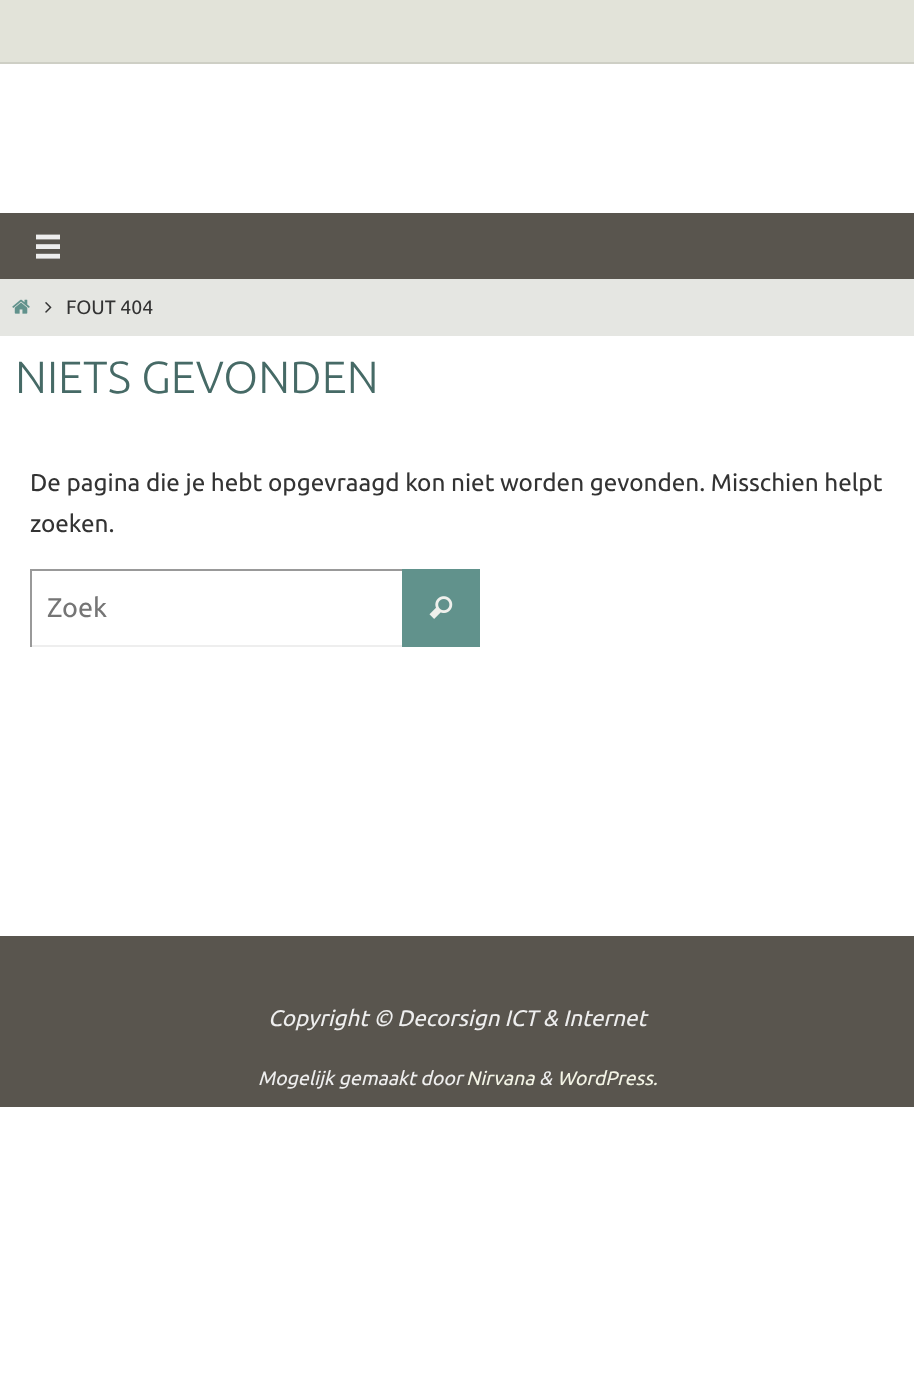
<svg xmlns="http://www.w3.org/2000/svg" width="914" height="1400">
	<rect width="100%" height="100%" fill="#FFFFFF" />
	<rect x="0" y="0" width="914" height="62" fill="#E2E3D9" />
	<rect x="0" y="62" width="914" height="2" fill="#CECFC5" />
	<rect x="0" y="213" width="914" height="66" fill="#59554E" />
	<image x="36" y="234" width="24" height="25" href="assets/img1.png" />
	<rect x="0" y="279" width="914" height="57" fill="#E5E6E2" />
	<image x="12" y="299" width="18" height="15" href="assets/img2.png" />
	<image x="45" y="302" width="7" height="11" href="assets/img3.png" />
	<text x="66" y="314" font-family="Ubuntu" font-size="19.5" fill="#333333">FOUT 404</text>
	<text x="15" y="393" font-family="Ubuntu" font-size="45" font-weight="300" fill="#466A66">NIETS GEVONDEN</text>
	<g font-family="Ubuntu" font-size="24.3" fill="#333333">
		<text x="30" y="491">De pagina die je hebt opgevraagd kon niet worden gevonden. Misschien helpt</text>
		<text x="30" y="532">zoeken.</text>
	</g>
	<rect x="30" y="569" width="372" height="2" fill="#999999" />
	<rect x="30" y="645" width="372" height="2" fill="#EEEEEE" />
	<rect x="30" y="569" width="2" height="78" fill="#999999" />
	<text x="47" y="617" font-family="Ubuntu" font-size="27" fill="#757575">Zoek</text>
	<rect x="402" y="569" width="78" height="78" fill="#61928C" />
	<image x="429" y="596" width="24" height="23" href="assets/img4.png" />
	<rect x="0" y="936" width="914" height="171" fill="#59554E" />
	<text x="268" y="1026" font-family="Ubuntu" font-size="22.5" font-style="italic" fill="#EEEEEE">Copyright © Decorsign ICT &amp; Internet</text>
	<text x="258" y="1085" font-family="Ubuntu" font-size="19.5" font-style="italic" fill="#EEEEEE">Mogelijk gemaakt door</text>
	<text x="466" y="1085" font-family="Ubuntu" font-size="19.5" font-style="italic" fill="#F3F4E5">Nirvana</text>
	<text x="539" y="1085" font-family="Ubuntu" font-size="19.5" font-style="italic" fill="#EEEEEE">&amp;</text>
	<text x="557" y="1085" font-family="Ubuntu" font-size="19.5" font-style="italic" fill="#F3F4E5">WordPress.</text>
</svg>
